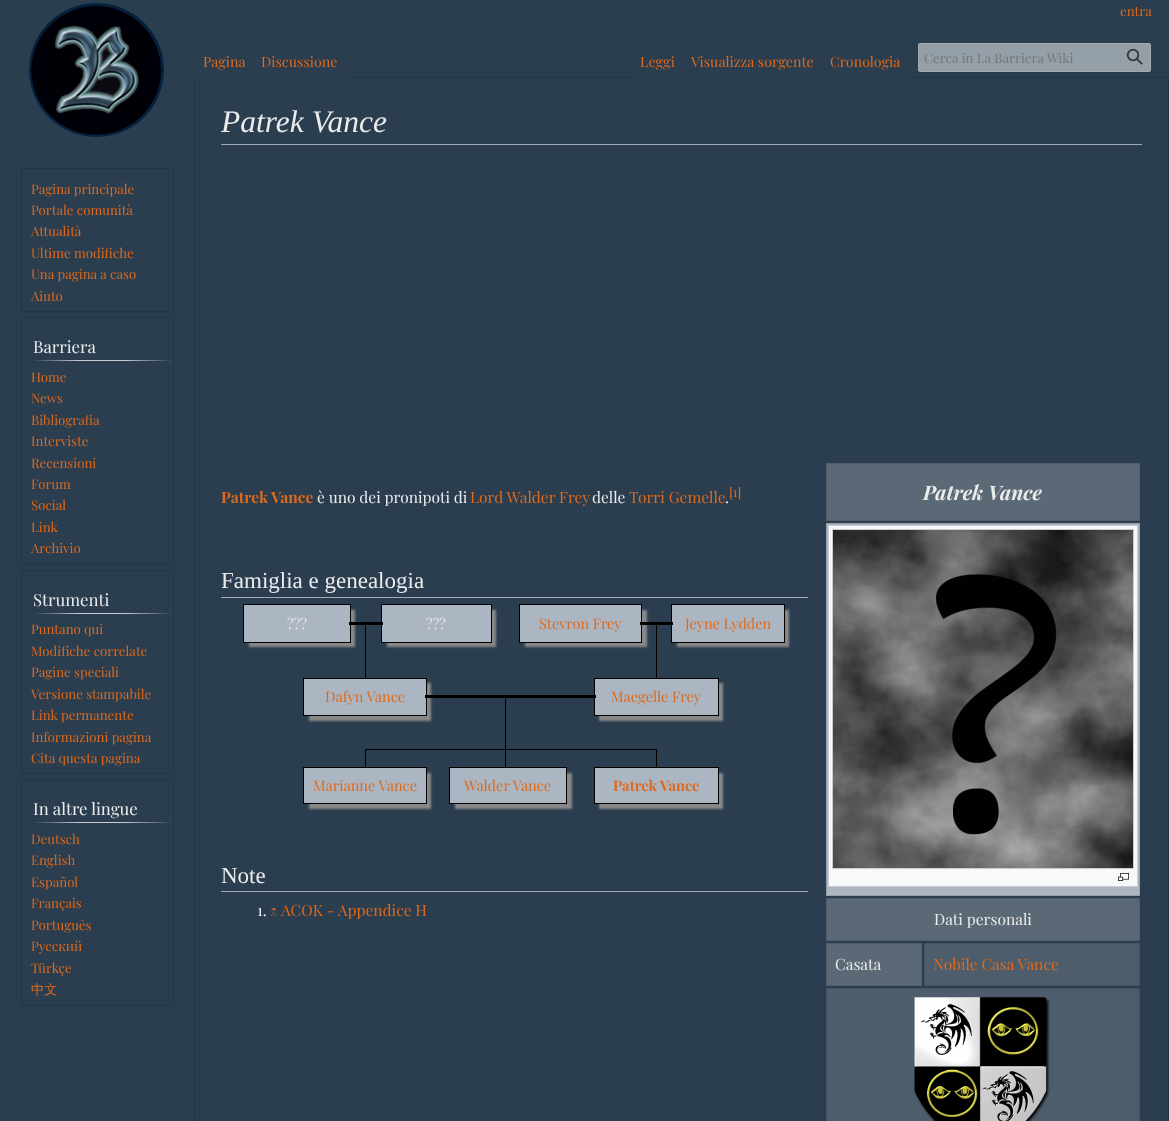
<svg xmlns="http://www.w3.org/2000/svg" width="1169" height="1121">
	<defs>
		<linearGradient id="g1" gradientUnits="userSpaceOnUse" x1="33" y1="361" x2="173" y2="361"><stop offset="0" stop-color="#2B3E50" /><stop offset="0.33" stop-color="#C8CCD1" /><stop offset="0.66" stop-color="#C8CCD1" /><stop offset="1" stop-color="#2B3E50" /></linearGradient>
		<linearGradient id="g2" gradientUnits="userSpaceOnUse" x1="33" y1="614" x2="173" y2="614"><stop offset="0" stop-color="#2B3E50" /><stop offset="0.33" stop-color="#C8CCD1" /><stop offset="0.66" stop-color="#C8CCD1" /><stop offset="1" stop-color="#2B3E50" /></linearGradient>
		<linearGradient id="g3" gradientUnits="userSpaceOnUse" x1="33" y1="823" x2="173" y2="823"><stop offset="0" stop-color="#2B3E50" /><stop offset="0.33" stop-color="#C8CCD1" /><stop offset="0.66" stop-color="#C8CCD1" /><stop offset="1" stop-color="#2B3E50" /></linearGradient>
	</defs>
	<rect width="100%" height="100%" fill="#2B3E50" />
	<text x="1120" y="16" font-family="Playfair Display" font-size="13.25" fill="#DF691A">entra</text>
	<rect x="194.5" y="77.5" width="974" height="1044" fill="none" stroke="#263646" />
	<rect x="194" y="77" width="152" height="1" fill="#2B3E50" />
	<g font-family="Playfair Display" font-size="14.25" fill="#DF691A">
		<text x="203" y="67">Pagina</text>
		<text x="261" y="67">Discussione</text>
	</g>
	<rect x="631" y="77" width="278" height="1" fill="#2B3E50" />
	<g font-family="Playfair Display" font-size="14.25" fill="#DF691A">
		<text x="640" y="67">Leggi</text>
		<text x="691" y="67">Visualizza sorgente</text>
		<text x="830" y="67">Cronologia</text>
	</g>
	<rect x="918.5" y="43.5" width="232" height="28" rx="1.5" fill="#959FA8" stroke="#A2A9B1" />
	<text x="924" y="63" font-family="Playfair Display" font-size="13.25" fill="#72777D">Cerca in La Barriera Wiki</text>
	<image x="1126" y="48" width="17" height="17" href="assets/img1.png" />
	<image x="29" y="3" width="135" height="134" href="assets/img2.png" />
	<rect x="21.5" y="168.5" width="152" height="143" fill="none" stroke="#263646" />
	<g font-family="Playfair Display" font-size="13.25" fill="#DF691A">
		<text x="31" y="194">Pagina principale</text>
		<text x="31" y="215">Portale comunità</text>
		<text x="31" y="236">Attualità</text>
		<text x="31" y="258">Ultime modifiche</text>
		<text x="31" y="279">Una pagina a caso</text>
		<text x="31" y="301">Aiuto</text>
	</g>
	<rect x="21.5" y="317.5" width="152" height="247" fill="none" stroke="#263646" />
	<rect x="33" y="360" width="140" height="1" fill="url(#g1)" />
	<text x="33" y="353" font-family="Playfair Display" font-size="16.75" fill="#EBEBEB">Barriera</text>
	<g font-family="Playfair Display" font-size="13.25" fill="#DF691A">
		<text x="31" y="382">Home</text>
		<text x="31" y="403">News</text>
		<text x="31" y="425">Bibliografia</text>
		<text x="31" y="446">Interviste</text>
		<text x="31" y="468">Recensioni</text>
		<text x="31" y="489">Forum</text>
		<text x="31" y="510">Social</text>
		<text x="31" y="532">Link</text>
		<text x="31" y="553">Archivio</text>
	</g>
	<rect x="21.5" y="570.5" width="152" height="203" fill="none" stroke="#263646" />
	<rect x="33" y="613" width="140" height="1" fill="url(#g2)" />
	<text x="33" y="606" font-family="Playfair Display" font-size="16.75" fill="#EBEBEB">Strumenti</text>
	<g font-family="Playfair Display" font-size="13.25" fill="#DF691A">
		<text x="31" y="634">Puntano qui</text>
		<text x="31" y="656">Modifiche correlate</text>
		<text x="31" y="677">Pagine speciali</text>
		<text x="31" y="699">Versione stampabile</text>
		<text x="31" y="720">Link permanente</text>
		<text x="31" y="742">Informazioni pagina</text>
		<text x="31" y="763">Cita questa pagina</text>
	</g>
	<rect x="21.5" y="779.5" width="152" height="226" fill="none" stroke="#263646" />
	<rect x="33" y="822" width="140" height="1" fill="url(#g3)" />
	<text x="33" y="815" font-family="Playfair Display" font-size="16.75" fill="#EBEBEB">In altre lingue</text>
	<g font-family="Playfair Display" font-size="13.25" fill="#DF691A">
		<text x="31" y="844">Deutsch</text>
		<text x="31" y="865">English</text>
		<text x="31" y="887">Español</text>
		<text x="31" y="908">Français</text>
		<text x="31" y="930">Português</text>
		<text x="31" y="951">Русский</text>
		<text x="31" y="973">Türkçe</text>
	</g>
	<text x="31" y="994" font-family="WenQuanYi Zen Hei" font-size="13.25" font-weight="500" fill="#DF691A">中文</text>
	<rect x="221" y="144" width="921" height="1" fill="#A2A9B1" />
	<text x="221" y="132" font-family="Liberation Serif" font-size="31.5" font-style="italic" fill="#EBEBEB">Patrek Vance</text>
	<text x="221" y="503" font-family="Playfair Display" font-size="15.5" font-weight="700" fill="#DF691A">Patrek Vance</text>
	<text x="317" y="503" font-family="Playfair Display" font-size="15.5" fill="#EBEBEB">è uno dei pronipoti di</text>
	<text x="470" y="503" font-family="Playfair Display" font-size="15.5" fill="#DF691A">Lord Walder Frey</text>
	<text x="592" y="503" font-family="Playfair Display" font-size="15.5" fill="#EBEBEB">delle</text>
	<text x="629" y="503" font-family="Playfair Display" font-size="15.5" fill="#DF691A">Torri Gemelle</text>
	<text x="725" y="503" font-family="Playfair Display" font-size="15.5" fill="#EBEBEB">.</text>
	<text x="729" y="497" font-family="Playfair Display" font-size="13" fill="#DF691A">[1]</text>
	<rect x="826.5" y="463.5" width="313" height="57" fill="#5B6977" stroke="#505C68" />
	<text x="923" y="500" font-family="Playfair Display" font-size="20" font-weight="700" font-style="italic" fill="#EBEBEB">Patrek Vance</text>
	<rect x="826.5" y="523.5" width="313" height="372" fill="#ABB6C2" stroke="#969FAA" />
	<rect x="829" y="526" width="308" height="360" fill="#F8F9FA" />
	<rect x="828" y="525" width="310" height="1" fill="#C8CCD1" />
	<rect x="828" y="886" width="310" height="1" fill="#C8CCD1" />
	<rect x="1137" y="525" width="1" height="362" fill="#C8CCD1" />
	<rect x="828" y="525" width="1" height="362" fill="#C8CCD1" />
	<rect x="832.5" y="529.5" width="301" height="339" fill="none" stroke="#C8CCD1" />
	<image x="833" y="530" width="300" height="338" href="assets/img3.png" />
	<image x="1118" y="873" width="11" height="8" href="assets/img4.png" />
	<rect x="826.5" y="898.5" width="313" height="42" fill="#5B6977" stroke="#505C68" />
	<text x="934" y="925" font-family="Playfair Display" font-size="15.5" fill="#EBEBEB">Dati personali</text>
	<rect x="826.5" y="943.5" width="95" height="42" fill="#5B6977" stroke="#505C68" />
	<text x="835" y="970" font-family="Playfair Display" font-size="15.5" fill="#EBEBEB">Casata</text>
	<rect x="924.5" y="943.5" width="215" height="42" fill="#4E5D6C" stroke="#44515F" />
	<text x="933" y="970" font-family="Playfair Display" font-size="15.5" fill="#DF691A">Nobile Casa Vance</text>
	<rect x="826.5" y="988.5" width="313" height="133" fill="#4E5D6C" stroke="#44515F" />
	<image x="914" y="997" width="136" height="124" href="assets/img5.png" />
	<rect x="221" y="597" width="587" height="1" fill="#A2A9B1" />
	<text x="221" y="588" font-family="Liberation Serif" font-size="23" fill="#EBEBEB">Famiglia e genealogia</text>
	<rect x="249" y="610" width="106" height="37" fill="#888888" filter="blur(1px)" />
	<rect x="244" y="605" width="106" height="37" fill="#ABB6C2" />
	<rect x="243" y="604" width="108" height="1" fill="#000000" />
	<rect x="350" y="604" width="1" height="39" fill="#000000" />
	<rect x="243" y="642" width="108" height="1" fill="#000000" />
	<rect x="243" y="604" width="1" height="39" fill="#000000" />
	<text x="287" y="629" font-family="Playfair Display" font-size="14.5" fill="#EBEBEB">???</text>
	<rect x="387" y="610" width="109" height="37" fill="#888888" filter="blur(1px)" />
	<rect x="382" y="605" width="109" height="37" fill="#ABB6C2" />
	<rect x="381" y="604" width="111" height="1" fill="#000000" />
	<rect x="491" y="604" width="1" height="39" fill="#000000" />
	<rect x="381" y="642" width="111" height="1" fill="#000000" />
	<rect x="381" y="604" width="1" height="39" fill="#000000" />
	<rect x="303" y="678" width="124" height="1" fill="#000000" />
	<rect x="365" y="623" width="1" height="56" fill="#000000" />
	<rect x="349" y="622" width="34" height="3" fill="#000000" />
	<text x="426" y="629" font-family="Playfair Display" font-size="14.5" fill="#EBEBEB">???</text>
	<rect x="525" y="610" width="122" height="37" fill="#888888" filter="blur(1px)" />
	<rect x="520" y="605" width="121" height="37" fill="#ABB6C2" />
	<rect x="519" y="604" width="123" height="1" fill="#000000" />
	<rect x="641" y="604" width="1" height="39" fill="#000000" />
	<rect x="519" y="642" width="123" height="1" fill="#000000" />
	<rect x="519" y="604" width="1" height="39" fill="#000000" />
	<text x="539" y="629" font-family="Playfair Display" font-size="14.5" fill="#DF691A">Stevron Frey</text>
	<rect x="677" y="610" width="112" height="37" fill="#888888" filter="blur(1px)" />
	<rect x="672" y="605" width="112" height="37" fill="#ABB6C2" />
	<rect x="671" y="604" width="114" height="1" fill="#000000" />
	<rect x="784" y="604" width="1" height="39" fill="#000000" />
	<rect x="671" y="642" width="114" height="1" fill="#000000" />
	<rect x="671" y="604" width="1" height="39" fill="#000000" />
	<rect x="594" y="678" width="125" height="1" fill="#000000" />
	<rect x="656" y="623" width="1" height="56" fill="#000000" />
	<rect x="640" y="622" width="33" height="3" fill="#000000" />
	<text x="685" y="629" font-family="Playfair Display" font-size="14.5" fill="#DF691A">Jeyne Lydden</text>
	<rect x="309" y="683" width="122" height="38" fill="#888888" filter="blur(1px)" />
	<rect x="304" y="679" width="122" height="36" fill="#ABB6C2" />
	<rect x="426" y="678" width="1" height="38" fill="#000000" />
	<rect x="303" y="715" width="124" height="1" fill="#000000" />
	<rect x="303" y="678" width="1" height="38" fill="#000000" />
	<text x="325" y="702" font-family="Playfair Display" font-size="14.5" fill="#DF691A">Dafyn Vance</text>
	<rect x="599" y="683" width="124" height="38" fill="#888888" filter="blur(1px)" />
	<rect x="595" y="679" width="123" height="36" fill="#ABB6C2" />
	<rect x="718" y="678" width="1" height="38" fill="#000000" />
	<rect x="594" y="715" width="125" height="1" fill="#000000" />
	<rect x="594" y="678" width="1" height="38" fill="#000000" />
	<rect x="449" y="767" width="118" height="1" fill="#000000" />
	<rect x="505" y="749" width="1" height="19" fill="#000000" />
	<rect x="594" y="767" width="125" height="1" fill="#000000" />
	<rect x="656" y="749" width="1" height="19" fill="#000000" />
	<rect x="505" y="749" width="152" height="1" fill="#000000" />
	<rect x="505" y="696" width="1" height="54" fill="#000000" />
	<rect x="425" y="695" width="171" height="3" fill="#000000" />
	<text x="611" y="702" font-family="Playfair Display" font-size="14.5" fill="#DF691A">Maegelle Frey</text>
	<rect x="303" y="767" width="124" height="1" fill="#000000" />
	<rect x="365" y="749" width="1" height="19" fill="#000000" />
	<rect x="365" y="749" width="141" height="1" fill="#000000" />
	<rect x="309" y="773" width="122" height="36" fill="#888888" filter="blur(1px)" />
	<rect x="304" y="768" width="122" height="35" fill="#ABB6C2" />
	<rect x="426" y="767" width="1" height="37" fill="#000000" />
	<rect x="303" y="803" width="124" height="1" fill="#000000" />
	<rect x="303" y="767" width="1" height="37" fill="#000000" />
	<text x="313" y="791" font-family="Playfair Display" font-size="14.5" fill="#DF691A">Marianne Vance</text>
	<rect x="455" y="773" width="117" height="36" fill="#888888" filter="blur(1px)" />
	<rect x="450" y="768" width="116" height="35" fill="#ABB6C2" />
	<rect x="566" y="767" width="1" height="37" fill="#000000" />
	<rect x="449" y="803" width="118" height="1" fill="#000000" />
	<rect x="449" y="767" width="1" height="37" fill="#000000" />
	<text x="464" y="791" font-family="Playfair Display" font-size="14.5" fill="#DF691A">Walder Vance</text>
	<rect x="599" y="773" width="124" height="36" fill="#888888" filter="blur(1px)" />
	<rect x="595" y="768" width="123" height="35" fill="#ABB6C2" />
	<rect x="718" y="767" width="1" height="37" fill="#000000" />
	<rect x="594" y="803" width="125" height="1" fill="#000000" />
	<rect x="594" y="767" width="1" height="37" fill="#000000" />
	<text x="613" y="791" font-family="Playfair Display" font-size="14.5" font-weight="700" fill="#DF691A">Patrek Vance</text>
	<rect x="221" y="891" width="587" height="1" fill="#A2A9B1" />
	<text x="221" y="883" font-family="Liberation Serif" font-size="23" fill="#EBEBEB">Note</text>
	<text x="257" y="916" font-family="Playfair Display" font-size="15.5" fill="#EBEBEB">1.</text>
	<g font-family="Playfair Display" font-size="15.5" fill="#DF691A">
		<text x="270" y="916">↑</text>
		<text x="281" y="916">ACOK - Appendice H</text>
	</g>
</svg>
